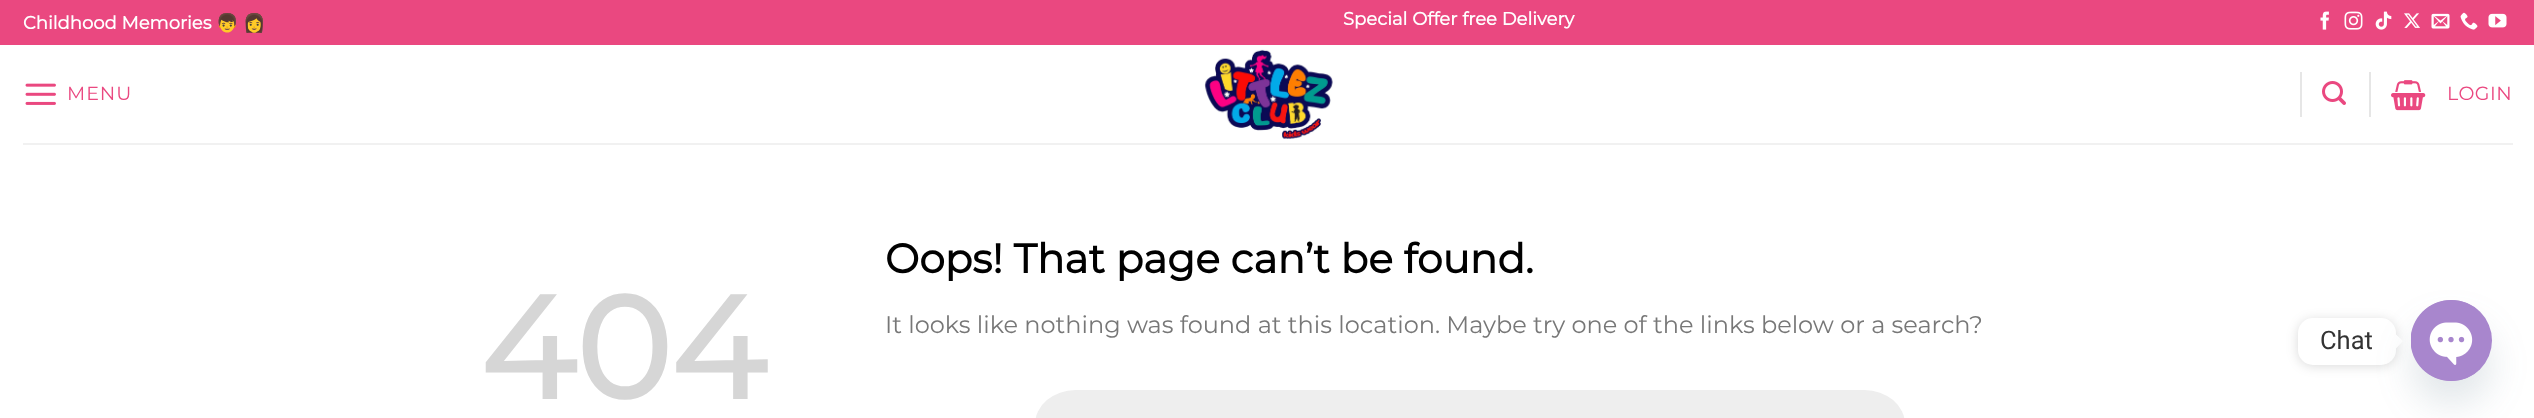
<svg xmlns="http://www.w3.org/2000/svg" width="2534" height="418">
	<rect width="100%" height="100%" fill="#FFFFFF" />
	<rect x="0" y="0" width="2534" height="45" fill="#EA4880" />
	<text x="23" y="29" font-family="Montserrat" font-size="18" font-weight="700" fill="#FFFFFF">Childhood Memories</text>
	<g font-family="Noto Color Emoji" font-size="18" font-weight="700" fill="#FFFFFF">
		<text x="216" y="29">👦</text>
		<text x="243" y="29">👩</text>
	</g>
	<text x="1343" y="25" font-family="Montserrat" font-size="18" font-weight="700" fill="#FFFFFF">Special Offer free Delivery</text>
	<image x="2320" y="11" width="9" height="19" href="assets/img1.png" />
	<image x="2344" y="11" width="19" height="19" href="assets/img2.png" />
	<image x="2375" y="11" width="17" height="19" href="assets/img3.png" />
	<image x="2404" y="13" width="16" height="15" href="assets/img4.png" />
	<image x="2431" y="13" width="19" height="16" href="assets/img5.png" />
	<image x="2460" y="12" width="18" height="18" href="assets/img6.png" />
	<image x="2488" y="13" width="19" height="15" href="assets/img7.png" />
	<image x="25" y="83" width="31" height="22" href="assets/img8.png" />
	<text x="67" y="100" font-family="Montserrat" font-size="19" font-weight="100" letter-spacing="1" fill="#EA4880">MENU</text>
	<image x="1204" y="49" width="129" height="90" href="assets/img9.png" />
	<rect x="2300" y="72" width="2" height="45" fill="#E6E6E6" />
	<image x="2322" y="81" width="24" height="24" href="assets/img10.png" />
	<rect x="2369" y="72" width="2" height="45" fill="#E6E6E6" />
	<image x="2391" y="80" width="35" height="31" href="assets/img11.png" />
	<text x="2447" y="100" font-family="Montserrat" font-size="19" font-weight="100" letter-spacing="0.5" fill="#EA4880">LOGIN</text>
	<rect x="23" y="143" width="2490" height="2" fill="#F1F1F1" />
	<text x="480" y="399" font-family="Montserrat" font-size="144" font-weight="700" fill="#D6D6D6">404</text>
	<text x="885" y="273" font-family="Montserrat" font-size="40.75" font-weight="700" fill="#000000">Oops! That page can’t be found.</text>
	<text x="885" y="333" font-family="Montserrat" font-size="24" font-weight="100" fill="#777777">It looks like nothing was found at this location. Maybe try one of the links below or a search?</text>
	<rect x="1035" y="390" width="870" height="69" rx="40.5" fill="#EEEEEE" />
	<rect x="2298" y="320" width="98" height="46" rx="15" fill="#000000" fill-opacity="0.15" filter="blur(6px)" />
	<rect x="2298" y="318" width="98" height="47" rx="15" fill="#FFFFFF" />
	<text x="2320" y="349" font-family="Roboto" font-size="25.5" fill="#333333">Chat</text>
	<path d="M2395.5 349V334L2403 341Z" fill="#FFFFFF" />
	<rect x="2411" y="324" width="81" height="81" rx="40.5" fill="#49687E" fill-opacity="0.16" filter="blur(18px)" />
	<circle cx="2451.5" cy="340.5" r="40.5" fill="#A886CD" />
	<image x="2411" y="300" width="67" height="81" href="assets/img12.png" />
</svg>
